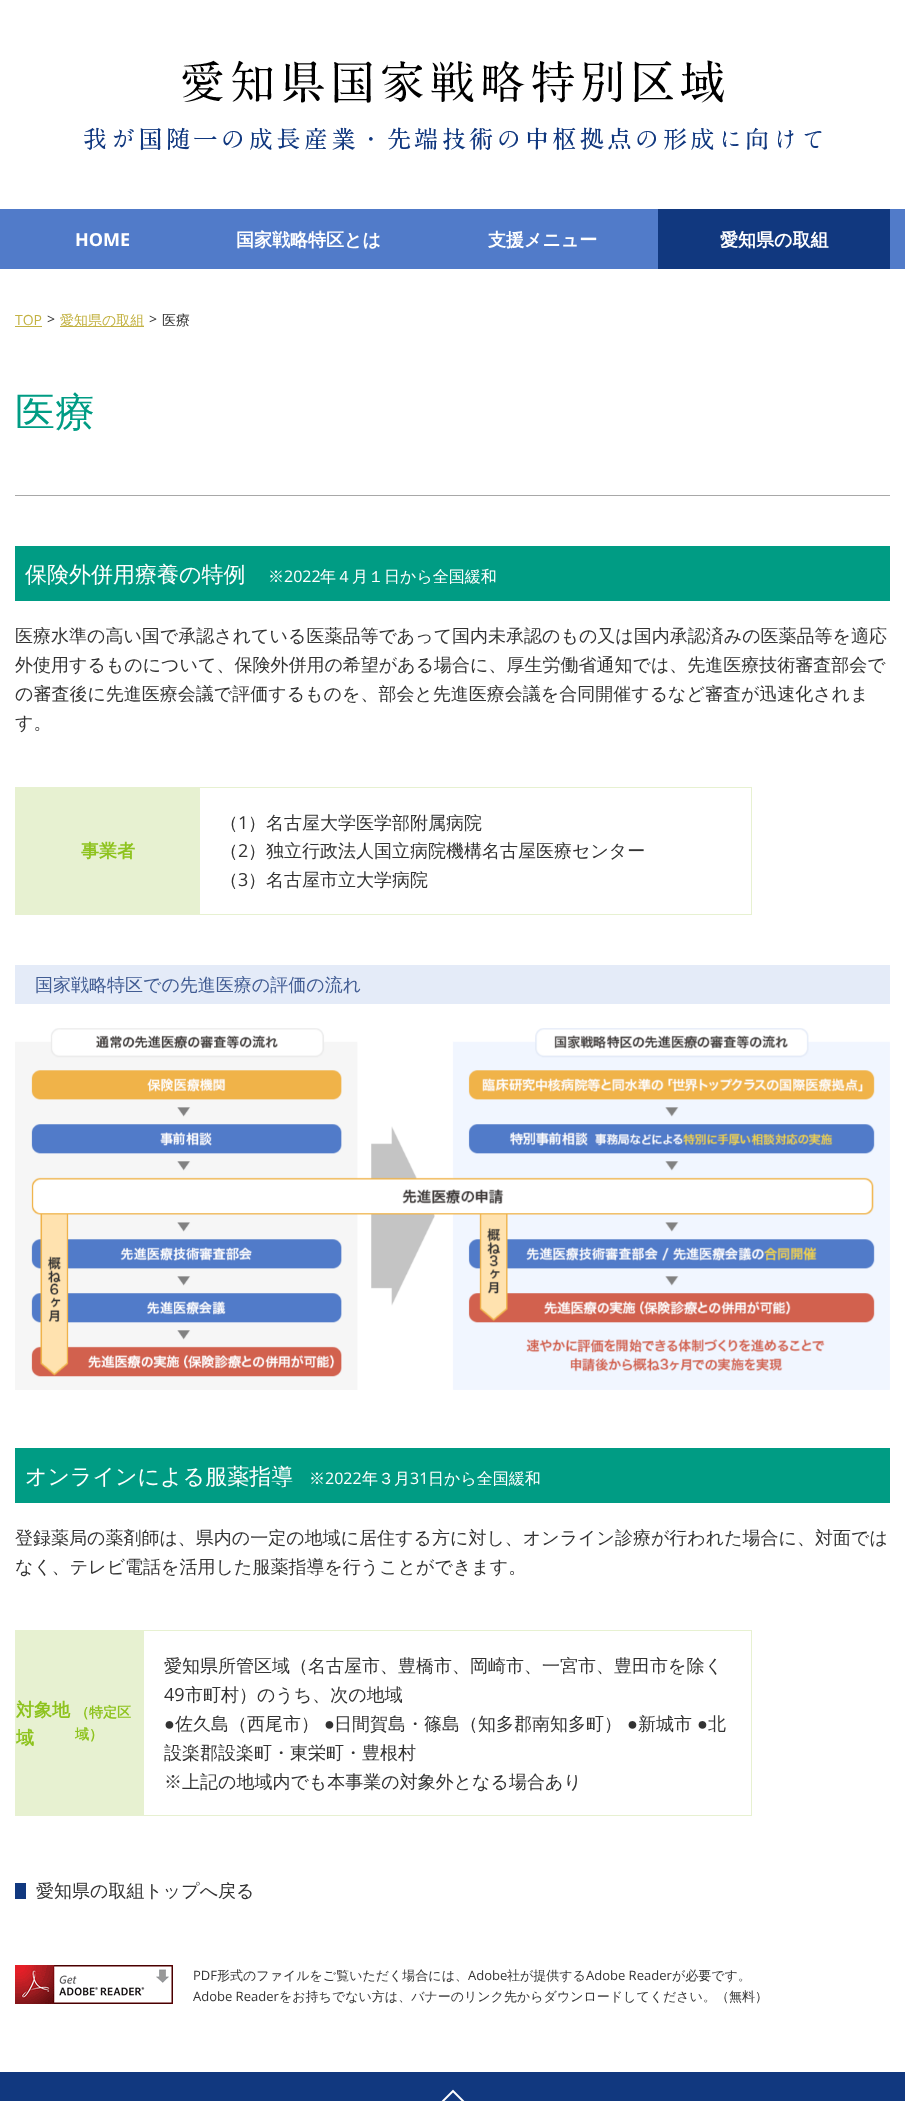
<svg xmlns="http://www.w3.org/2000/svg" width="905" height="2101">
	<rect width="100%" height="100%" fill="#FFFFFF" />
	<image x="182" y="60" width="542" height="43" href="assets/img1.png" />
	<image x="84" y="127" width="738" height="24" href="assets/img2.png" />
	<rect x="0" y="209" width="905" height="60" fill="#517BC9" />
	<text x="75" y="246" font-family="Open Sans" font-size="18" font-weight="700" fill="#FFFFFF">HOME</text>
	<g font-family="WenQuanYi Zen Hei" font-size="18" font-weight="700" fill="#FFFFFF">
		<text x="236" y="246">国家戦略特区とは</text>
		<text x="488" y="246">支援メニュー</text>
	</g>
	<rect x="658" y="209" width="232" height="60" fill="#11387F" />
	<text x="720" y="246" font-family="WenQuanYi Zen Hei" font-size="18" font-weight="700" fill="#FFFFFF">愛知県の取組</text>
	<text x="15" y="325" font-family="Open Sans" font-size="14" fill="#C3B243">TOP</text>
	<rect x="15" y="326" width="27" height="1" fill="#C3B243" />
	<text x="47" y="324" font-family="Open Sans" font-size="14" fill="#333333">&gt;</text>
	<rect x="60" y="326" width="84" height="1" fill="#C3B243" />
	<text x="60" y="325" font-family="WenQuanYi Zen Hei" font-size="14" font-weight="500" fill="#C3B243">愛知県の取組</text>
	<text x="149" y="324" font-family="Open Sans" font-size="14" fill="#333333">&gt;</text>
	<text x="162" y="325" font-family="WenQuanYi Zen Hei" font-size="14" font-weight="500" fill="#333333">医療</text>
	<rect x="15" y="495" width="875" height="1" fill="#A8A8A8" />
	<text x="15" y="426" font-family="WenQuanYi Zen Hei" font-size="40" font-weight="500" fill="#009C84">医療</text>
	<rect x="15" y="546" width="875" height="55" fill="#009C84" />
	<text x="25" y="582" font-family="WenQuanYi Zen Hei" font-size="22" font-weight="500" fill="#FFFFFF">保険外併用療養の特例</text>
	<text x="268" y="582" font-family="WenQuanYi Zen Hei" font-size="16" font-weight="500" fill="#FFFFFF">※</text>
	<text x="284" y="582" font-family="Open Sans" font-size="16" fill="#FFFFFF">2022</text>
	<text x="320" y="582" font-family="WenQuanYi Zen Hei" font-size="16" font-weight="500" fill="#FFFFFF">年４月１日から全国緩和</text>
	<g font-family="WenQuanYi Zen Hei" font-size="18" font-weight="500" fill="#333333">
		<text x="15" y="642">医療水準の高い国で承認されている医薬品等であって国内未承認のもの又は国内承認済みの医薬品等を適応</text>
		<text x="15" y="671">外使用するものについて、保険外併用の希望がある場合に、厚生労働省通知では、先進医療技術審査部会で</text>
		<text x="15" y="700">の審査後に先進医療会議で評価するものを、部会と先進医療会議を合同開催するなど審査が迅速化されま</text>
		<text x="15" y="729">す。</text>
	</g>
	<rect x="15.5" y="787.5" width="736" height="127" fill="none" stroke="#E7F1D1" />
	<rect x="16" y="788" width="184" height="126" fill="#E7F1D1" />
	<text x="81" y="857" font-family="WenQuanYi Zen Hei" font-size="18" font-weight="700" fill="#8EC31E">事業者</text>
	<text x="220" y="829" font-family="WenQuanYi Zen Hei" font-size="18" font-weight="500" fill="#333333">（</text>
	<text x="238" y="829" font-family="Open Sans" font-size="18" fill="#333333">1</text>
	<g font-family="WenQuanYi Zen Hei" font-size="18" font-weight="500" fill="#333333">
		<text x="248" y="829">）名古屋大学医学部附属病院</text>
		<text x="220" y="857">（</text>
	</g>
	<text x="238" y="857" font-family="Open Sans" font-size="18" fill="#333333">2</text>
	<g font-family="WenQuanYi Zen Hei" font-size="18" font-weight="500" fill="#333333">
		<text x="248" y="857">）独立行政法人国立病院機構名古屋医療センター</text>
		<text x="220" y="886">（</text>
	</g>
	<text x="238" y="886" font-family="Open Sans" font-size="18" fill="#333333">3</text>
	<text x="248" y="886" font-family="WenQuanYi Zen Hei" font-size="18" font-weight="500" fill="#333333">）名古屋市立大学病院</text>
	<rect x="15" y="965" width="875" height="39" fill="#E4EBF8" />
	<text x="35" y="991" font-family="WenQuanYi Zen Hei" font-size="18" font-weight="500" fill="#415C93">国家戦略特区での先進医療の評価の流れ</text>
	<image x="15" y="1028" width="875" height="362" href="assets/img3.png" />
	<rect x="15" y="1448" width="875" height="55" fill="#009C84" />
	<text x="25" y="1484" font-family="WenQuanYi Zen Hei" font-size="22" font-weight="500" fill="#FFFFFF">オンラインによる服薬指導</text>
	<text x="309" y="1484" font-family="WenQuanYi Zen Hei" font-size="16" font-weight="500" fill="#FFFFFF">※</text>
	<text x="325" y="1484" font-family="Open Sans" font-size="16" fill="#FFFFFF">2022</text>
	<text x="362" y="1484" font-family="WenQuanYi Zen Hei" font-size="16" font-weight="500" fill="#FFFFFF">年３月</text>
	<text x="410" y="1484" font-family="Open Sans" font-size="16" fill="#FFFFFF">31</text>
	<text x="428" y="1484" font-family="WenQuanYi Zen Hei" font-size="16" font-weight="500" fill="#FFFFFF">日から全国緩和</text>
	<g font-family="WenQuanYi Zen Hei" font-size="18" font-weight="500" fill="#333333">
		<text x="15" y="1544">登録薬局の薬剤師は、県内の一定の地域に居住する方に対し、オンライン診療が行われた場合に、対面では</text>
		<text x="15" y="1573">なく、テレビ電話を活用した服薬指導を行うことができます。</text>
	</g>
	<rect x="15.5" y="1630.5" width="736" height="185" fill="none" stroke="#E7F1D1" />
	<rect x="16" y="1631" width="128" height="184" fill="#E7F1D1" />
	<text x="16" y="1716" font-family="WenQuanYi Zen Hei" font-size="18" font-weight="700" fill="#8EC31E">対象地</text>
	<g font-family="WenQuanYi Zen Hei" font-size="14" font-weight="700" fill="#8EC31E">
		<text x="75" y="1717">（特定区</text>
		<text x="75" y="1739">域）</text>
	</g>
	<text x="16" y="1744" font-family="WenQuanYi Zen Hei" font-size="18" font-weight="700" fill="#8EC31E">域</text>
	<text x="164" y="1672" font-family="WenQuanYi Zen Hei" font-size="18" font-weight="500" fill="#333333">愛知県所管区域（名古屋市、豊橋市、岡崎市、一宮市、豊田市を除く</text>
	<text x="164" y="1701" font-family="Open Sans" font-size="18" fill="#333333">49</text>
	<text x="185" y="1701" font-family="WenQuanYi Zen Hei" font-size="18" font-weight="500" fill="#333333">市町村）のうち、次の地域</text>
	<text x="164" y="1730" font-family="Liberation Sans" font-size="18" fill="#333333">●</text>
	<text x="175" y="1730" font-family="WenQuanYi Zen Hei" font-size="18" font-weight="500" fill="#333333">佐久島（西尾市）</text>
	<text x="324" y="1730" font-family="Liberation Sans" font-size="18" fill="#333333">●</text>
	<text x="334" y="1730" font-family="WenQuanYi Zen Hei" font-size="18" font-weight="500" fill="#333333">日間賀島・篠島（知多郡南知多町）</text>
	<text x="627" y="1730" font-family="Liberation Sans" font-size="18" fill="#333333">●</text>
	<text x="638" y="1730" font-family="WenQuanYi Zen Hei" font-size="18" font-weight="500" fill="#333333">新城市</text>
	<text x="697" y="1730" font-family="Liberation Sans" font-size="18" fill="#333333">●</text>
	<g font-family="WenQuanYi Zen Hei" font-size="18" font-weight="500" fill="#333333">
		<text x="708" y="1730">北</text>
		<text x="164" y="1759">設楽郡設楽町・東栄町・豊根村</text>
		<text x="164" y="1788">※上記の地域内でも本事業の対象外となる場合あり</text>
	</g>
	<rect x="15" y="1883" width="11" height="16" fill="#11387F" />
	<text x="36" y="1897" font-family="WenQuanYi Zen Hei" font-size="18" font-weight="500" fill="#333333">愛知県の取組トップへ戻る</text>
	<image x="15" y="1965" width="158" height="39" href="assets/img4.png" />
	<text x="193" y="1980" font-family="Open Sans" font-size="13" fill="#333333">PDF</text>
	<text x="217" y="1980" font-family="WenQuanYi Zen Hei" font-size="13" font-weight="500" fill="#333333">形式のファイルをご覧いただく場合には、</text>
	<text x="468" y="1980" font-family="Open Sans" font-size="13" fill="#333333">Adobe</text>
	<text x="507" y="1980" font-family="WenQuanYi Zen Hei" font-size="13" font-weight="500" fill="#333333">社が提供する</text>
	<text x="586" y="1980" font-family="Open Sans" font-size="13" fill="#333333">Adobe Reader</text>
	<text x="672" y="1980" font-family="WenQuanYi Zen Hei" font-size="13" font-weight="500" fill="#333333">が必要です。</text>
	<text x="193" y="2001" font-family="Open Sans" font-size="13" fill="#333333">Adobe Reader</text>
	<text x="279" y="2001" font-family="WenQuanYi Zen Hei" font-size="13" font-weight="500" fill="#333333">をお持ちでない方は、バナーのリンク先からダウンロードしてください。（無料）</text>
	<rect x="0" y="2072" width="905" height="29" fill="#11387F" />
	<image x="441" y="2089" width="24" height="12" href="assets/img5.png" />
</svg>
